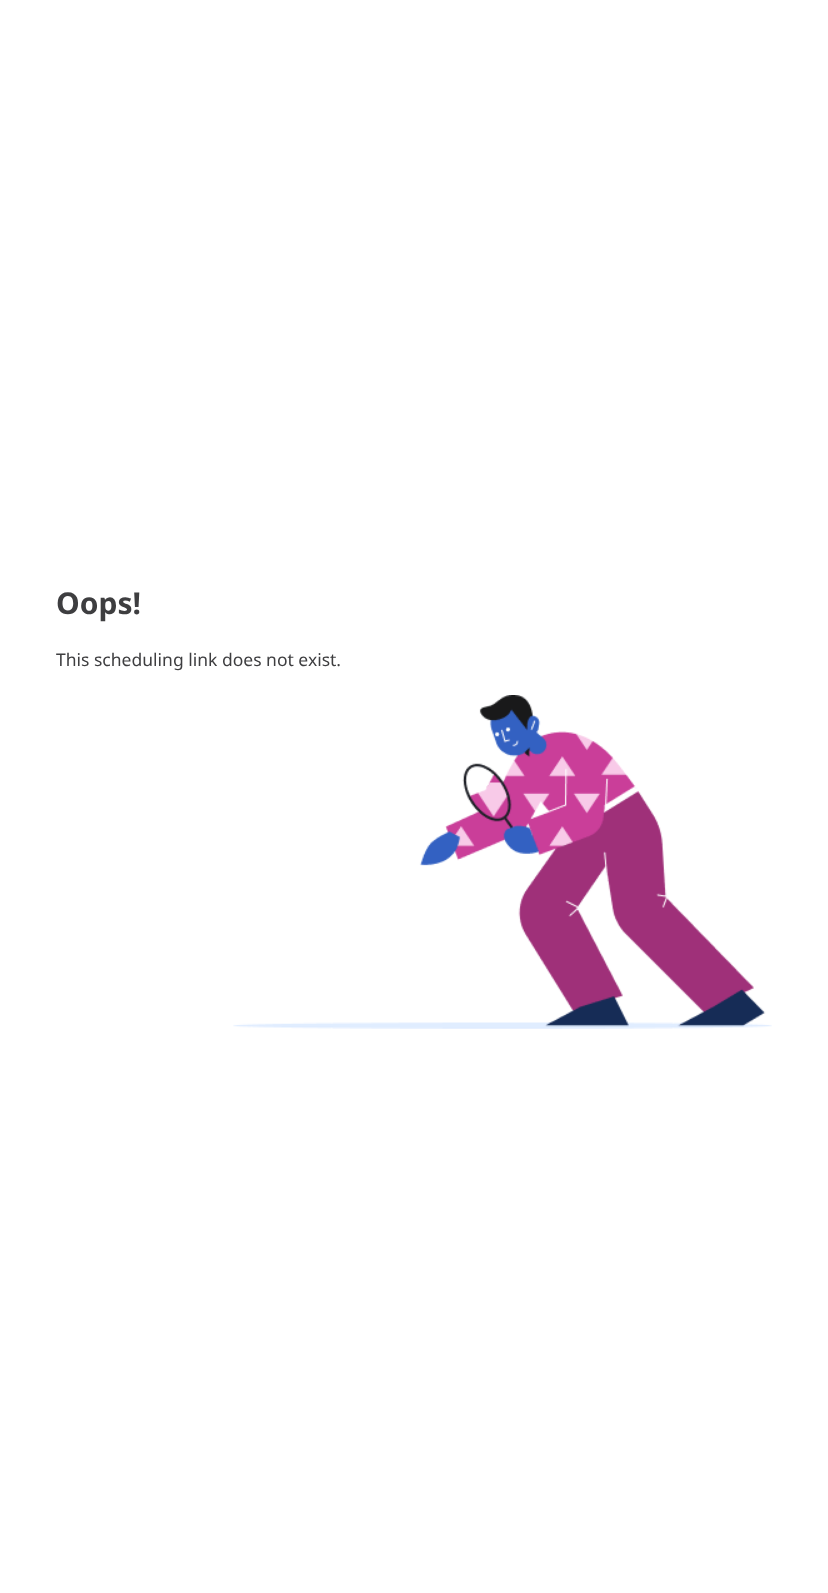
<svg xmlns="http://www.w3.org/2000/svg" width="828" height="1593">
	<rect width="100%" height="100%" fill="#FFFFFF" />
	<text x="56" y="614" font-family="Noto Sans" font-size="30" font-weight="700" fill="#3E3E40">Oops!</text>
	<text x="56" y="666" font-family="Noto Sans" font-size="17.5" fill="#3E3E40">This scheduling link does not exist.</text>
	<image x="233" y="695" width="539" height="334" href="assets/img1.png" />
</svg>
